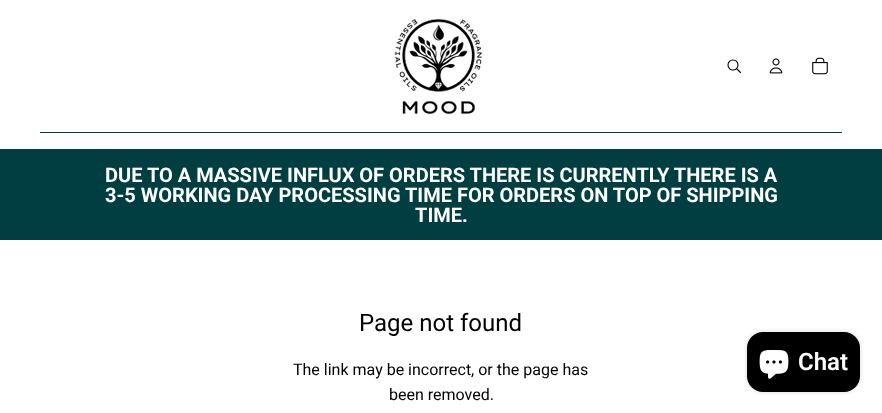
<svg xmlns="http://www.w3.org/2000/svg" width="882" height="413">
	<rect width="100%" height="100%" fill="#FFFFFF" />
	<rect x="40" y="132" width="802" height="1" fill="#003E41" />
	<image x="394" y="18" width="88" height="97" href="assets/img1.png" />
	<circle cx="733" cy="65" r="5" fill="none" stroke="#000000" stroke-width="1.1" />
	<path d="M737 69L740.5 72.5" fill="none" stroke="#000000" stroke-width="1.1" stroke-linecap="round" stroke-linejoin="round" />
	<image x="769" y="58" width="14" height="16" href="assets/img2.png" />
	<image x="812" y="57" width="16" height="18" href="assets/img3.png" />
	<rect x="0" y="149" width="882" height="91" fill="#003E41" />
	<g font-family="Roboto" font-size="20" font-weight="700" fill="#FFFFFF">
		<text x="105" y="182">DUE TO A MASSIVE INFLUX OF ORDERS THERE IS CURRENTLY THERE IS A</text>
		<text x="105" y="202">3-5 WORKING DAY PROCESSING TIME FOR ORDERS ON TOP OF SHIPPING</text>
		<text x="415" y="222">TIME.</text>
	</g>
	<text x="359" y="331" font-family="Roboto" font-size="24" fill="#000000">Page not found</text>
	<g font-family="Roboto" font-size="16" fill="#000000">
		<text x="293" y="375">The link may be incorrect, or the page has</text>
		<text x="389" y="400">been removed.</text>
	</g>
	<rect x="747" y="332" width="113" height="60" rx="16" fill="#000000" fill-opacity="0.15" filter="blur(2.5px)" />
	<rect x="747" y="332" width="113" height="60" rx="16" fill="#000000" />
	<image x="759" y="350" width="30" height="29" href="assets/img4.png" />
	<text x="798" y="370" font-family="Roboto" font-size="24" font-weight="600" fill="#FFFFFF">Chat</text>
</svg>
